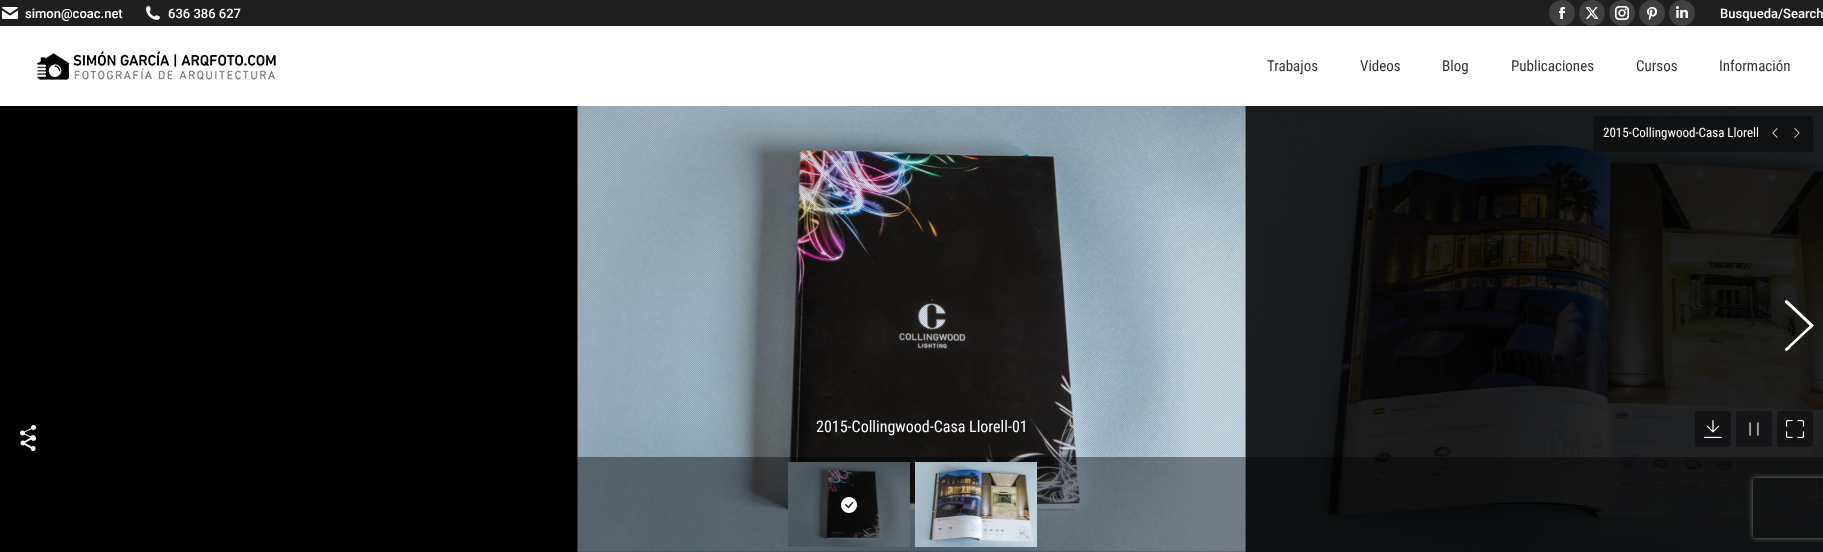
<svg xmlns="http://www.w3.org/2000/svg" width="1823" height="552">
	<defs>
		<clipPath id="clip1"><path d="M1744 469H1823V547H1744ZM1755 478H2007C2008 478 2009 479 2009 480V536C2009 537 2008 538 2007 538H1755C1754 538 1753 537 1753 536V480C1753 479 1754 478 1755 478Z" clip-rule="evenodd" /></clipPath>
	</defs>
	<rect width="100%" height="100%" fill="#FFFFFF" />
	<rect x="0" y="0" width="1823" height="26" fill="#1F1F1F" />
	<image x="2" y="7" width="16" height="12" href="assets/img1.png" />
	<text x="25" y="18" font-family="Roboto" font-size="13" font-weight="500" fill="#FFFFFF">simon@coac.net</text>
	<image x="146" y="6" width="14" height="14" href="assets/img2.png" />
	<text x="168" y="18" font-family="Roboto" font-size="13" font-weight="500" fill="#FFFFFF">636 386 627</text>
	<circle cx="1562" cy="13" r="13" fill="#404040" />
	<image x="1559" y="7" width="6" height="12" href="assets/img3.png" />
	<circle cx="1592" cy="13" r="13" fill="#404040" />
	<image x="1585" y="7" width="14" height="12" href="assets/img4.png" />
	<circle cx="1622" cy="13" r="13" fill="#404040" />
	<image x="1615" y="6" width="14" height="14" href="assets/img5.png" />
	<circle cx="1652" cy="13" r="13" fill="#404040" />
	<image x="1646" y="7" width="12" height="13" href="assets/img6.png" />
	<circle cx="1682" cy="13" r="13" fill="#404040" />
	<image x="1676" y="6" width="12" height="12" href="assets/img7.png" />
	<text x="1720" y="18" font-family="Roboto" font-size="13" font-weight="500" fill="#FFFFFF">Busqueda/Search</text>
	<image x="37" y="51" width="239" height="29" href="assets/img8.png" />
	<g font-family="Roboto Condensed" font-size="15" fill="#333333">
		<text x="1267" y="71">Trabajos</text>
		<text x="1360" y="71">Videos</text>
		<text x="1442" y="71">Blog</text>
		<text x="1511" y="71">Publicaciones</text>
		<text x="1636" y="71">Cursos</text>
		<text x="1719" y="71">Información</text>
	</g>
	<rect x="0" y="106" width="1823" height="446" fill="#000000" />
	<image x="577" y="106" width="669" height="446" href="assets/img9.png" />
	<image x="1246" y="106" width="577" height="446" href="assets/img10.png" />
	<image x="577" y="106" width="669" height="446" href="assets/img11.png" />
	<rect x="1593" y="116" width="220" height="36" rx="3" fill="#000000" fill-opacity="0.4" />
	<text x="1603" y="137" font-family="Roboto Condensed" font-size="13" fill="#FFFFFF">2015-Collingwood-Casa Llorell</text>
	<image x="1772" y="128" width="6" height="10" href="assets/img12.png" />
	<image x="1794" y="128" width="6" height="10" href="assets/img13.png" />
	<path d="M1787.5 300.5L1813.5 325L1813 326.5C1811.5 328.5 1809 325 1806.5 322.5L1789.5 306.5C1788 305 1784 303 1785 301C1785.5 300 1786.5 300 1787.5 300.5Z" fill="#FFFFFF" />
	<path d="M1785.5 348.5L1811.5 324L1813 324.5C1815 326 1811 328.5 1808.5 330.5L1791.5 346.5C1790 348 1787.5 352 1785.5 350.5C1784.5 350 1784.5 349 1785.5 348.5Z" fill="#FFFFFF" />
	<image x="20" y="425" width="16" height="16" href="assets/img14.png" />
	<image x="20" y="435" width="16" height="16" href="assets/img15.png" />
	<text x="816" y="432" font-family="Roboto Condensed" font-size="16" fill="#FFFFFF">2015-Collingwood-Casa Llorell-01</text>
	<rect x="1695" y="411" width="36" height="36" rx="3" fill="#141416" />
	<image x="1704" y="420" width="18" height="18" href="assets/img16.png" />
	<rect x="1736" y="411" width="36" height="36" rx="3" fill="#141516" />
	<image x="1749" y="422" width="10" height="14" href="assets/img17.png" />
	<rect x="1777" y="411" width="36" height="36" rx="3" fill="#000000" fill-opacity="0.4" />
	<image x="1786" y="420" width="18" height="18" href="assets/img18.png" />
	<rect x="577" y="457" width="1246" height="95" fill="#000000" fill-opacity="0.4" />
	<image x="788" y="462" width="122" height="85" href="assets/img19.png" />
	<image x="841" y="497" width="16" height="16" href="assets/img20.png" />
	<image x="915" y="462" width="122" height="85" href="assets/img21.png" />
	<g clip-path="url(#clip1)">
		<rect x="1753" y="478" width="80" height="60" rx="2" fill="#808080" filter="blur(2.5px)" />
	</g>
</svg>
